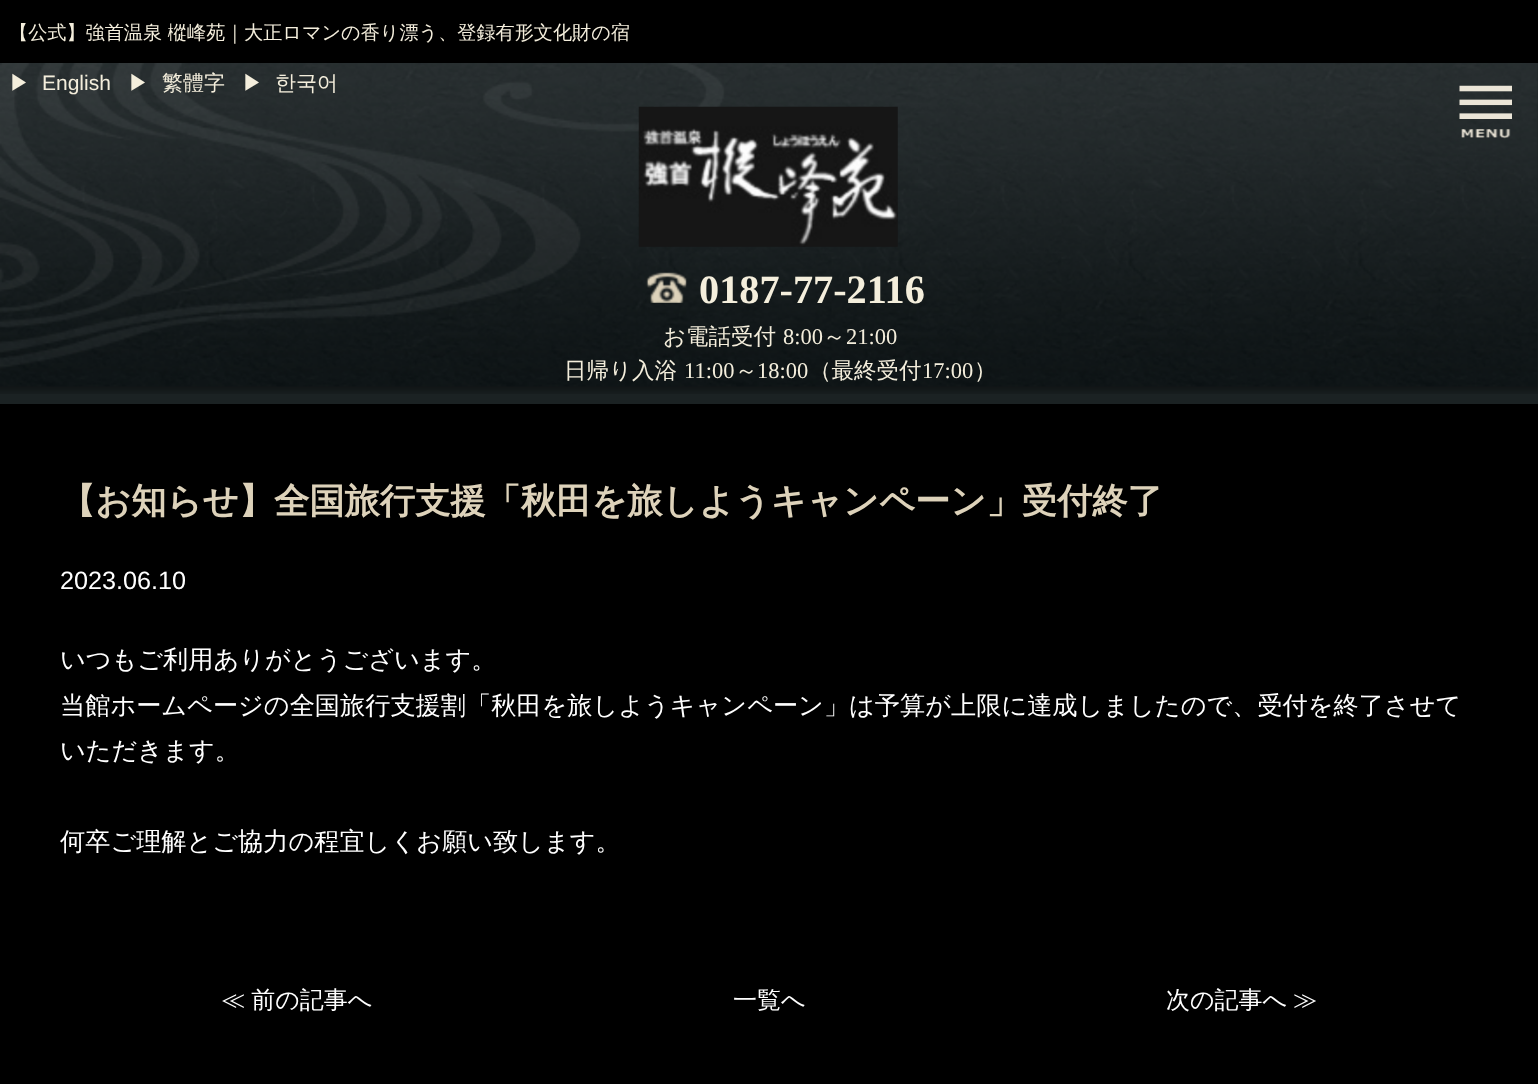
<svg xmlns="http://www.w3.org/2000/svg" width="1538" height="1084">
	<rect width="100%" height="100%" fill="#000000" />
	<text x="9" y="39" font-family="WenQuanYi Zen Hei" font-size="19.15" font-weight="500" fill="#F4EEDC">【公式】強首温泉 樅峰苑｜大正ロマンの香り漂う、登録有形文化財の宿</text>
	<rect x="0" y="63" width="1538" height="341" fill="#1B2223" />
	<image x="0" y="63" width="1538" height="331" href="assets/img1.png" />
	<text x="9" y="90" font-family="WenQuanYi Zen Hei" font-size="21" font-weight="500" fill="#F4EEDC">▶</text>
	<text x="42" y="90" font-family="Liberation Sans" font-size="21" fill="#F4EEDC">English</text>
	<g font-family="WenQuanYi Zen Hei" font-size="21" font-weight="500" fill="#F4EEDC">
		<text x="128" y="90">▶</text>
		<text x="162" y="90">繁體字</text>
		<text x="242" y="90">▶</text>
		<text x="275" y="90">한국어</text>
	</g>
	<image x="638" y="106" width="260" height="141" href="assets/img2.png" />
	<image x="646" y="272" width="41" height="31" href="assets/img3.png" />
	<text x="699" y="303" font-family="Liberation Serif" font-size="40.25" font-weight="700" fill="#F4EEDC">0187-77-2116</text>
	<text x="663" y="344" font-family="WenQuanYi Zen Hei" font-size="22.5" font-weight="500" fill="#F4EEDC">お電話受付</text>
	<text x="783" y="344" font-family="Liberation Serif" font-size="22.5" fill="#F4EEDC">8:00</text>
	<text x="823" y="344" font-family="WenQuanYi Zen Hei" font-size="22.5" font-weight="500" fill="#F4EEDC">～</text>
	<text x="846" y="344" font-family="Liberation Serif" font-size="22.5" fill="#F4EEDC">21:00</text>
	<text x="564" y="378" font-family="WenQuanYi Zen Hei" font-size="22.5" font-weight="500" fill="#F4EEDC">日帰り入浴</text>
	<text x="684" y="378" font-family="Liberation Serif" font-size="22.5" fill="#F4EEDC">11:00</text>
	<text x="735" y="378" font-family="WenQuanYi Zen Hei" font-size="22.5" font-weight="500" fill="#F4EEDC">～</text>
	<text x="757" y="378" font-family="Liberation Serif" font-size="22.5" fill="#F4EEDC">18:00</text>
	<text x="809" y="378" font-family="WenQuanYi Zen Hei" font-size="22.5" font-weight="500" fill="#F4EEDC">（最終受付</text>
	<text x="922" y="378" font-family="Liberation Serif" font-size="22.5" fill="#F4EEDC">17:00</text>
	<text x="974" y="378" font-family="WenQuanYi Zen Hei" font-size="22.5" font-weight="500" fill="#F4EEDC">）</text>
	<image x="1459" y="85" width="53" height="54" href="assets/img4.png" />
	<text x="60" y="513" font-family="WenQuanYi Zen Hei" font-size="35.25" font-weight="700" fill="#DDD2BA">【お知らせ】全国旅行支援「秋田を旅しようキャンペーン」受付終了</text>
	<text x="60" y="589" font-family="Liberation Sans" font-size="25.2" fill="#FFFFFF">2023.06.10</text>
	<g font-family="WenQuanYi Zen Hei" font-size="25.2" font-weight="500" fill="#FFFFFF">
		<text x="60" y="668">いつもご利用ありがとうございます。</text>
		<text x="60" y="714">当館ホームページの全国旅行支援割「秋田を旅しようキャンペーン」は予算が上限に達成しましたので、受付を終了させて</text>
		<text x="60" y="759">いただきます。</text>
		<text x="60" y="850">何卒ご理解とご協力の程宜しくお願い致します。</text>
	</g>
	<g font-family="WenQuanYi Zen Hei" font-size="24" font-weight="500" fill="#FFFFFF">
		<text x="221" y="1008" word-spacing="-1">≪ 前の記事へ</text>
		<text x="733" y="1008">一覧へ</text>
		<text x="1166" y="1008" word-spacing="-1">次の記事へ ≫</text>
	</g>
</svg>
